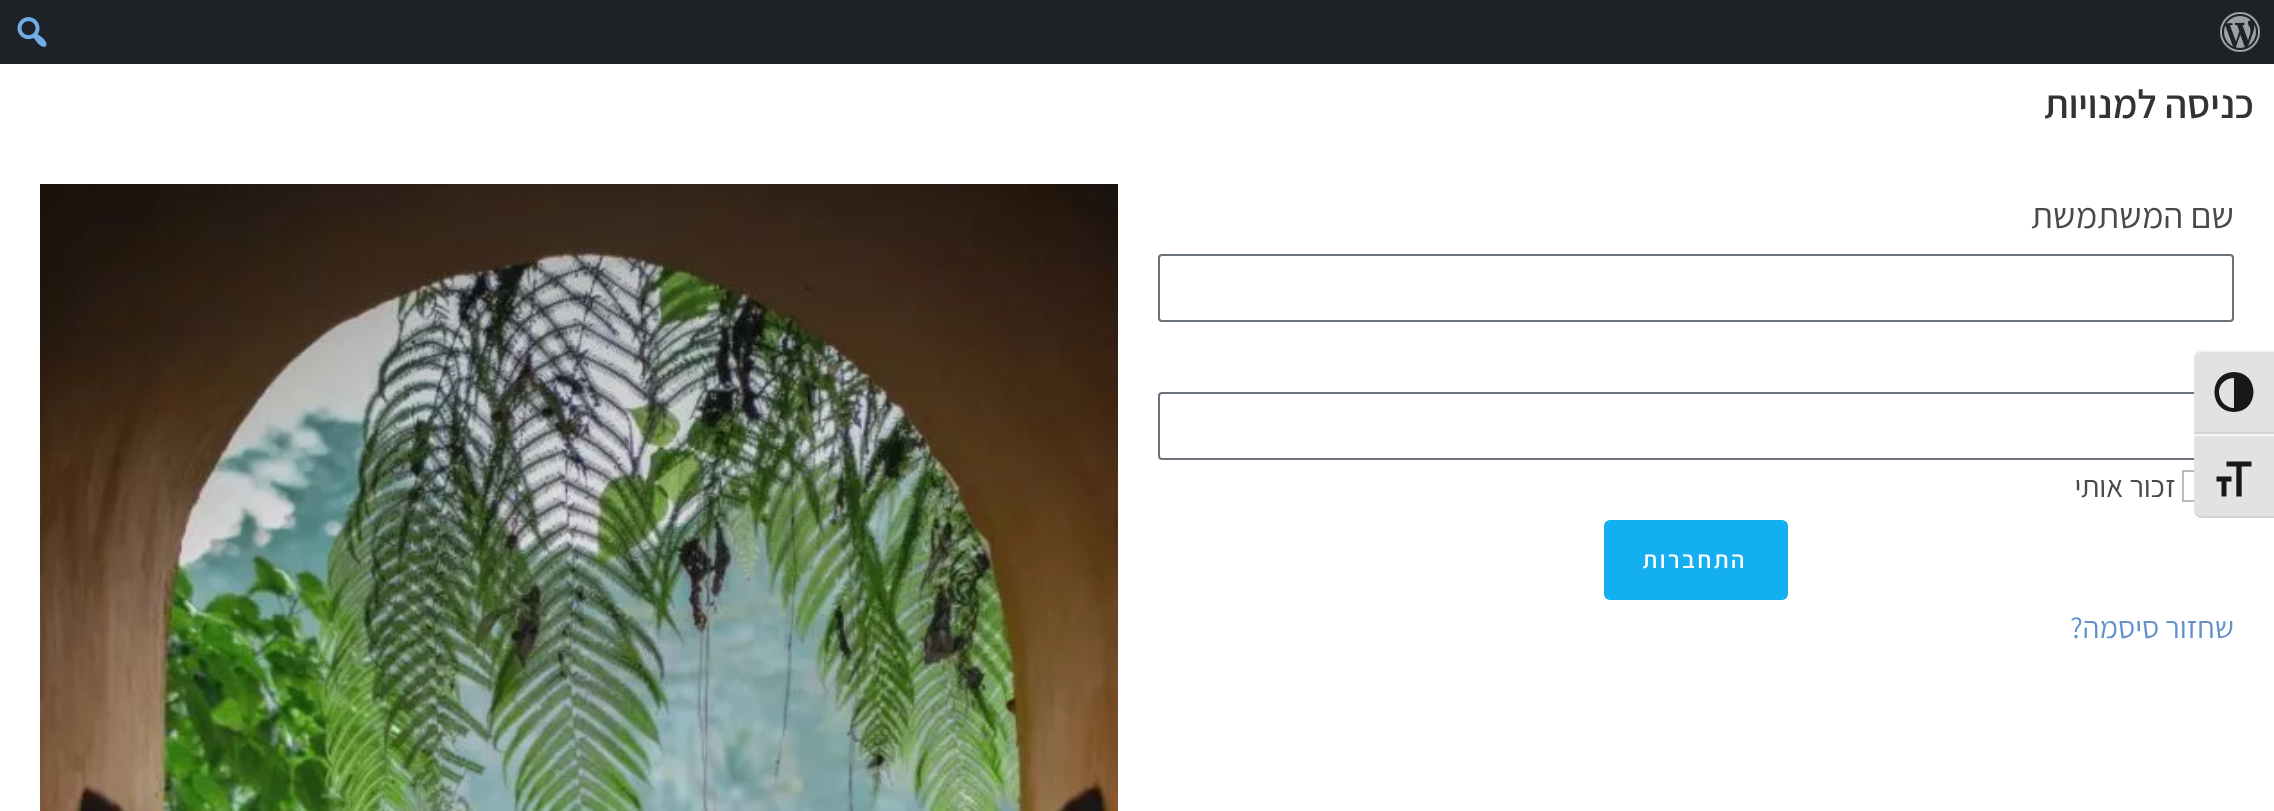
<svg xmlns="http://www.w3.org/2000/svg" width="2274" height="811">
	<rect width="100%" height="100%" fill="#FFFFFF" />
	<rect x="0" y="0" width="2274" height="64" fill="#1D2327" />
	<image x="2220" y="12" width="40" height="40" href="assets/img1.png" />
	<image x="17" y="17" width="30" height="30" href="assets/img2.png" />
	<text x="2254" y="118" font-family="Assistant" font-size="40" font-weight="600" direction="rtl" fill="#333333">כניסה למנויות</text>
	<text x="2234" y="228" font-family="Assistant" font-size="36" direction="rtl" fill="#4A4A4A">שם המשתמשת</text>
	<rect x="1159" y="255" width="1074" height="66" rx="3" fill="none" stroke="#69727D" stroke-width="2" />
	<rect x="1159" y="393" width="1074" height="66" rx="3" fill="none" stroke="#69727D" stroke-width="2" />
	<rect x="2183" y="471" width="30" height="30" fill="none" stroke="#BBBBBB" stroke-width="2" />
	<text x="2176" y="497" font-family="Assistant" font-size="30.5" direction="rtl" fill="#4A4A4A">זכור אותי</text>
	<rect x="1604" y="520" width="184" height="80" rx="6" fill="#13AFF0" />
	<text x="1747" y="568" font-family="Assistant" font-size="24" font-weight="600" letter-spacing="2.5" direction="rtl" fill="#FFFFFF">התחברות</text>
	<text x="2234" y="638" font-family="Assistant" font-size="30.5" direction="rtl" fill="#6392CA">שחזור סיסמה?</text>
	<image x="40" y="184" width="1078" height="627" href="assets/img3.png" />
	<path d="M2202 350H2274V434H2194V358C2194 353.5 2197.5 350 2202 350Z" fill="#E2E2E2" />
	<path d="M2202 352H2274V350H2202C2198 350 2194 354 2194 358C2194 355 2198 352 2202 352Z" fill="#F5F5F5" />
	<rect x="2194" y="432" width="80" height="2" fill="#D2D2D2" />
	<path d="M2234 372C2208 372 2208 412 2234 412C2260 412 2260 372 2234 372ZM2219 392C2219 384 2226 378 2234 378V408C2226 408 2219 401 2219 392Z" fill="#181818" />
	<path d="M2194 434H2274V518H2202C2197.5 518 2194 514.5 2194 510Z" fill="#E2E2E2" />
	<rect x="2194" y="434" width="80" height="2" fill="#F5F5F5" />
	<path d="M2274 518V516H2202C2198 516 2194 513 2194 510C2194 514 2198 518 2202 518Z" fill="#D2D2D2" />
	<image x="2216" y="461" width="36" height="36" href="assets/img4.png" />
</svg>
